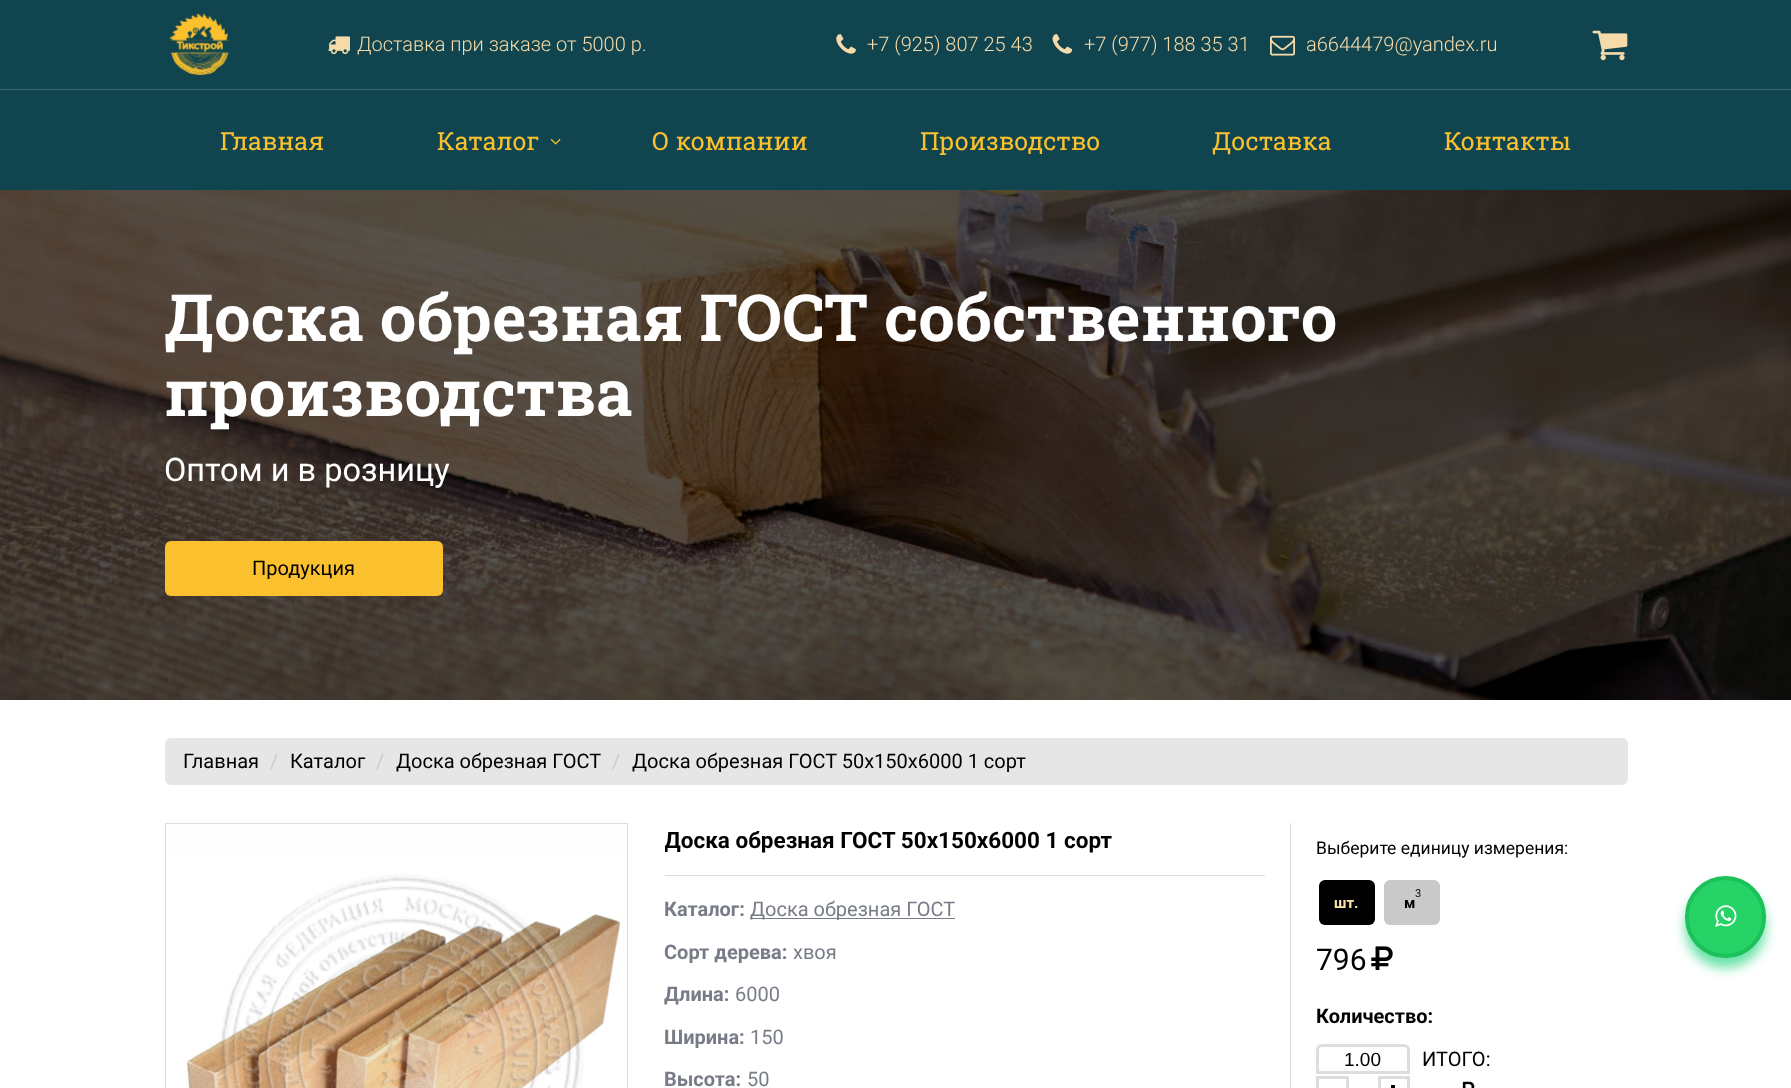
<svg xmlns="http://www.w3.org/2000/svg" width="1791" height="1088">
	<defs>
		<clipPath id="clip1"><rect x="665" y="823" width="600" height="33" /></clipPath>
	</defs>
	<rect width="100%" height="100%" fill="#FFFFFF" />
	<image x="0" y="190" width="1791" height="510" href="assets/img1.png" />
	<rect x="0" y="0" width="1791" height="89" fill="#10454F" />
	<rect x="0" y="89" width="1791" height="1" fill="#3B666F" />
	<image x="169" y="13" width="62" height="62" href="assets/img2.png" />
	<image x="328" y="36" width="22" height="19" href="assets/img3.png" />
	<text x="357" y="51" font-family="Roboto" font-size="20" font-weight="300" fill="#F5DAAA">Доставка при заказе от 5000 р.</text>
	<image x="836" y="34" width="20" height="20" href="assets/img4.png" />
	<text x="867" y="51" font-family="Roboto" font-size="20" font-weight="300" fill="#F5DAAA">+7 (925) 807 25 43</text>
	<image x="1052" y="34" width="21" height="20" href="assets/img5.png" />
	<text x="1084" y="51" font-family="Roboto" font-size="20" font-weight="300" fill="#F5DAAA">+7 (977) 188 35 31</text>
	<image x="1270" y="35" width="25" height="21" href="assets/img6.png" />
	<text x="1306" y="51" font-family="Roboto" font-size="20" font-weight="300" fill="#F5DAAA">a6644479@yandex.ru</text>
	<image x="1592" y="30" width="36" height="31" href="assets/img7.png" />
	<g font-family="Roboto Slab" font-size="65" font-weight="700" fill="#FFFFFF">
		<text x="164" y="341">Доска обрезная ГОСТ собственного</text>
		<text x="164" y="416">производства</text>
	</g>
	<text x="164" y="481" font-family="Roboto" font-size="32.5" fill="#FFFFFF">Оптом и в розницу</text>
	<rect x="165" y="541" width="278" height="55" rx="6" fill="#FBC02D" />
	<text x="252" y="575" font-family="Roboto" font-size="20" fill="#000000">Продукция</text>
	<rect x="0" y="90" width="1791" height="100" fill="#10454F" />
	<g font-family="Roboto Slab" font-size="25" fill="#FBC02D">
		<text x="220" y="150">Главная</text>
		<text x="437" y="150">Каталог</text>
	</g>
	<image x="550" y="138" width="11" height="7" href="assets/img8.png" />
	<g font-family="Roboto Slab" font-size="25" fill="#FBC02D">
		<text x="652" y="150">О компании</text>
		<text x="920" y="150">Производство</text>
		<text x="1212" y="150">Доставка</text>
		<text x="1444" y="150">Контакты</text>
	</g>
	<rect x="165" y="738" width="1463" height="47" rx="6" fill="#E6E6E6" />
	<text x="183" y="768" font-family="Roboto" font-size="20" fill="#000000">Главная</text>
	<text x="270" y="768" font-family="Roboto" font-size="20" fill="#CCCCCC">/</text>
	<text x="290" y="768" font-family="Roboto" font-size="20" fill="#000000">Каталог</text>
	<text x="376" y="768" font-family="Roboto" font-size="20" fill="#CCCCCC">/</text>
	<text x="396" y="768" font-family="Roboto" font-size="20" fill="#000000">Доска обрезная ГОСТ</text>
	<text x="612" y="768" font-family="Roboto" font-size="20" fill="#CCCCCC">/</text>
	<text x="632" y="768" font-family="Roboto" font-size="20" fill="#000000">Доска обрезная ГОСТ 50х150х6000 1 сорт</text>
	<rect x="165.5" y="823.5" width="462" height="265" fill="none" stroke="#DDDDDD" />
	<rect x="169" y="826" width="455" height="262" fill="#F3F3F3" />
	<image x="169" y="826" width="455" height="262" href="assets/img9.png" />
	<g clip-path="url(#clip1)">
		<text x="664" y="848" font-family="Roboto" font-size="22.5" font-weight="700" fill="#000000">Доска обрезная ГОСТ 50х150х6000 1 сорт</text>
	</g>
	<rect x="665" y="875" width="600" height="1" fill="#DDDDDD" />
	<text x="664" y="916" font-family="Roboto" font-size="20" font-weight="700" fill="#777C87">Каталог:</text>
	<rect x="750" y="918" width="205" height="1" fill="#777C87" />
	<text x="750" y="916" font-family="Roboto" font-size="20" fill="#777C87">Доска обрезная ГОСТ</text>
	<text x="664" y="959" font-family="Roboto" font-size="20" font-weight="700" fill="#777C87">Сорт дерева:</text>
	<text x="793" y="959" font-family="Roboto" font-size="20" fill="#777C87">хвоя</text>
	<text x="664" y="1001" font-family="Roboto" font-size="20" font-weight="700" fill="#777C87">Длина:</text>
	<text x="735" y="1001" font-family="Roboto" font-size="20" fill="#777C87">6000</text>
	<text x="664" y="1044" font-family="Roboto" font-size="20" font-weight="700" fill="#777C87">Ширина:</text>
	<text x="750" y="1044" font-family="Roboto" font-size="20" fill="#777C87">150</text>
	<text x="664" y="1086" font-family="Roboto" font-size="20" font-weight="700" fill="#777C87">Высота:</text>
	<text x="747" y="1086" font-family="Roboto" font-size="20" fill="#777C87">50</text>
	<rect x="1290" y="823" width="1" height="265" fill="#DDDDDD" />
	<text x="1316" y="854" font-family="Roboto" font-size="17.5" fill="#000000">Выберите единицу измерения:</text>
	<rect x="1319" y="880" width="56" height="45" rx="6" fill="#000000" />
	<text x="1334" y="908" font-family="Roboto" font-size="15" font-weight="700" fill="#FDE5A8">шт.</text>
	<rect x="1384" y="880" width="56" height="45" rx="6" fill="#C9C9C9" />
	<text x="1415" y="897" font-family="Roboto" font-size="11" fill="#000000">3</text>
	<text x="1404" y="908" font-family="Roboto" font-size="15" font-weight="700" fill="#000000">м</text>
	<text x="1316" y="970" font-family="Roboto" font-size="30" fill="#000000">796</text>
	<image x="1371" y="946" width="22" height="24" href="assets/img10.png" />
	<text x="1316" y="1023" font-family="Roboto" font-size="20" font-weight="700" fill="#000000">Количество:</text>
	<path d="M1322 1045.5H1404C1406.5 1045.5 1408.5 1047.5 1408.5 1050V1072.5H1317.5V1050C1317.5 1047.5 1319.5 1045.5 1322 1045.5Z" fill="none" stroke="#DDDDDD" stroke-width="3" />
	<text x="1344" y="1066" font-family="Liberation Sans" font-size="19" fill="#000000">1.00</text>
	<rect x="1317.5" y="1077.5" width="30" height="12" fill="none" stroke="#DDDDDD" stroke-width="3" />
	<rect x="1379.5" y="1077.5" width="29" height="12" fill="none" stroke="#DDDDDD" stroke-width="3" />
	<rect x="1391" y="1085" width="4" height="3" fill="#000000" />
	<text x="1422" y="1066" font-family="Roboto" font-size="20" fill="#000000">ИТОГО:</text>
	<image x="1462" y="1081" width="13" height="7" href="assets/img11.png" />
	<rect x="1685" y="886" width="81" height="82" rx="40.5" fill="#07CE70" fill-opacity="0.6" filter="blur(6px)" />
	<rect x="1687" y="878" width="77" height="78" rx="38.5" fill="#25D366" stroke="#1CC15A" stroke-width="4" />
	<image x="1715" y="905" width="22" height="22" href="assets/img12.png" />
</svg>
